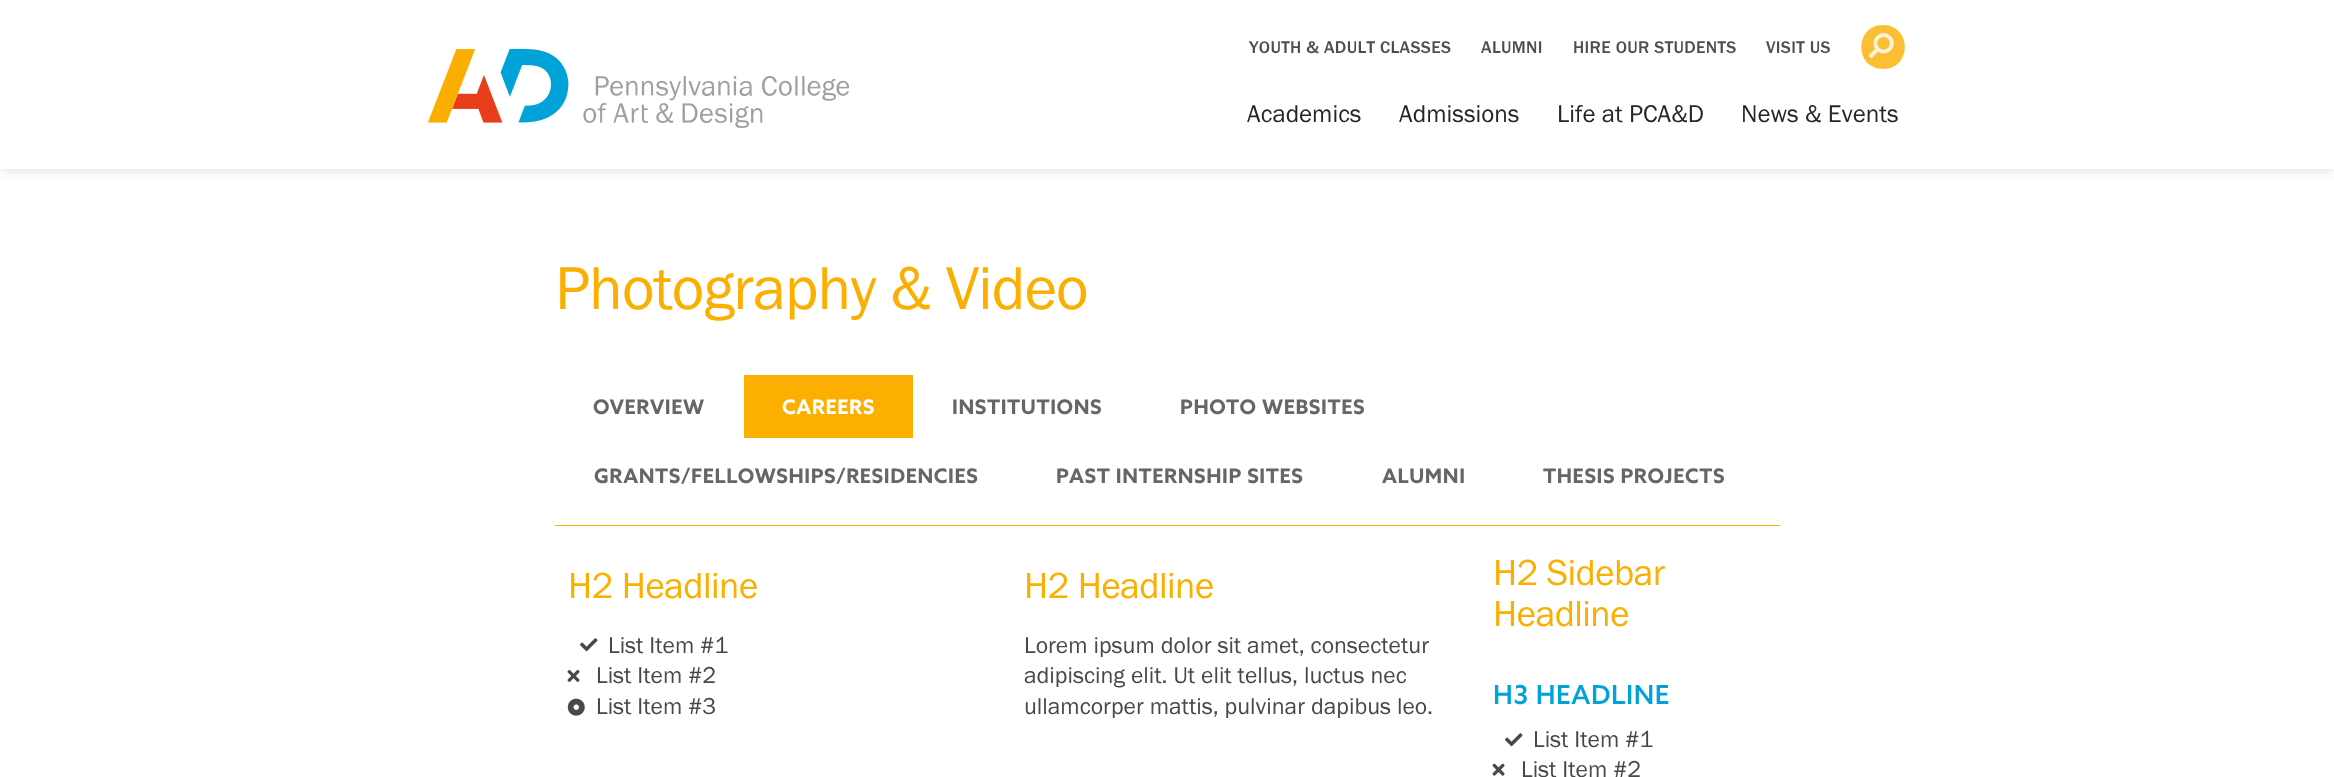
<svg xmlns="http://www.w3.org/2000/svg" width="2334" height="777">
	<rect width="100%" height="100%" fill="#FFFFFF" />
	<rect x="0" y="0" width="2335" height="169" fill="#000000" fill-opacity="0.15" filter="blur(6px)" />
	<rect x="0" y="0" width="2334" height="169" fill="#FFFFFF" />
	<image x="427" y="48" width="422" height="80" href="assets/img1.png" />
	<g font-family="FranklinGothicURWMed" font-size="17.5" letter-spacing="0.35" fill="#4E4E4E">
		<text x="1249" y="53">YOUTH &amp; ADULT CLASSES</text>
		<text x="1481" y="53">ALUMNI</text>
		<text x="1573" y="53">HIRE OUR STUDENTS</text>
		<text x="1766" y="53">VISIT US</text>
	</g>
	<path d="M1883 25C1854 25 1854 69 1883 69C1912 69 1912 25 1883 25Z" fill="#FCBF34" />
	<image x="1868" y="33" width="26" height="26" href="assets/img2.png" />
	<g font-family="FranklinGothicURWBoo" font-size="25" fill="#252525">
		<text x="1247" y="122">Academics</text>
		<text x="1399" y="122">Admissions</text>
		<text x="1557" y="122">Life at PCA&amp;D</text>
		<text x="1741" y="122">News &amp; Events</text>
	</g>
	<text x="555" y="309" font-family="FranklinGothicURWBoo" font-size="62.5" letter-spacing="-0.9" fill="#FBAF01">Photography &amp; Video</text>
	<rect x="555" y="525" width="1225" height="1" fill="#FBAF01" />
	<text x="593" y="414" font-family="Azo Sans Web" font-size="20" font-weight="700" letter-spacing="0.6" fill="#666666">OVERVIEW</text>
	<rect x="744" y="375" width="169" height="63" fill="#FBAF01" />
	<text x="782" y="414" font-family="Azo Sans Web" font-size="20" font-weight="700" letter-spacing="0.6" fill="#FFFFFF">CAREERS</text>
	<g font-family="Azo Sans Web" font-size="20" font-weight="700" letter-spacing="0.6" fill="#666666">
		<text x="952" y="414">INSTITUTIONS</text>
		<text x="1180" y="414">PHOTO WEBSITES</text>
		<text x="594" y="483">GRANTS/FELLOWSHIPS/RESIDENCIES</text>
		<text x="1056" y="483">PAST INTERNSHIP SITES</text>
		<text x="1382" y="483">ALUMNI</text>
		<text x="1543" y="483">THESIS PROJECTS</text>
	</g>
	<text x="568" y="598" font-family="FranklinGothicURWBoo" font-size="37.5" letter-spacing="-0.6" fill="#FBAF01">H2 Headline</text>
	<image x="580" y="638" width="18" height="14" href="assets/img3.png" />
	<text x="608" y="653" font-family="FranklinGothicURWBoo" font-size="23.75" fill="#484848">List Item #1</text>
	<image x="567" y="669" width="13" height="13" href="assets/img4.png" />
	<text x="596" y="683" font-family="FranklinGothicURWBoo" font-size="23.75" fill="#484848">List Item #2</text>
	<image x="567" y="698" width="18" height="18" href="assets/img5.png" />
	<text x="596" y="714" font-family="FranklinGothicURWBoo" font-size="23.75" fill="#484848">List Item #3</text>
	<text x="1024" y="598" font-family="FranklinGothicURWBoo" font-size="37.5" letter-spacing="-0.6" fill="#FBAF01">H2 Headline</text>
	<g font-family="FranklinGothicURWBoo" font-size="23.75" fill="#484848">
		<text x="1024" y="653">Lorem ipsum dolor sit amet, consectetur</text>
		<text x="1024" y="683">adipiscing elit. Ut elit tellus, luctus nec</text>
		<text x="1024" y="714">ullamcorper mattis, pulvinar dapibus leo.</text>
	</g>
	<g font-family="FranklinGothicURWBoo" font-size="37.5" letter-spacing="-0.6" fill="#FBAF01">
		<text x="1493" y="585">H2 Sidebar</text>
		<text x="1493" y="626">Headline</text>
	</g>
	<text x="1493" y="704" font-family="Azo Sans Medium" font-size="26.25" font-weight="500" letter-spacing="0.6" fill="#01A2D8">H3 HEADLINE</text>
	<image x="1505" y="733" width="18" height="14" href="assets/img3.png" />
	<text x="1533" y="747" font-family="FranklinGothicURWBoo" font-size="23.75" fill="#484848">List Item #1</text>
	<image x="1492" y="763" width="13" height="13" href="assets/img6.png" />
	<text x="1521" y="777" font-family="FranklinGothicURWBoo" font-size="23.75" fill="#484848">List Item #2</text>
</svg>
